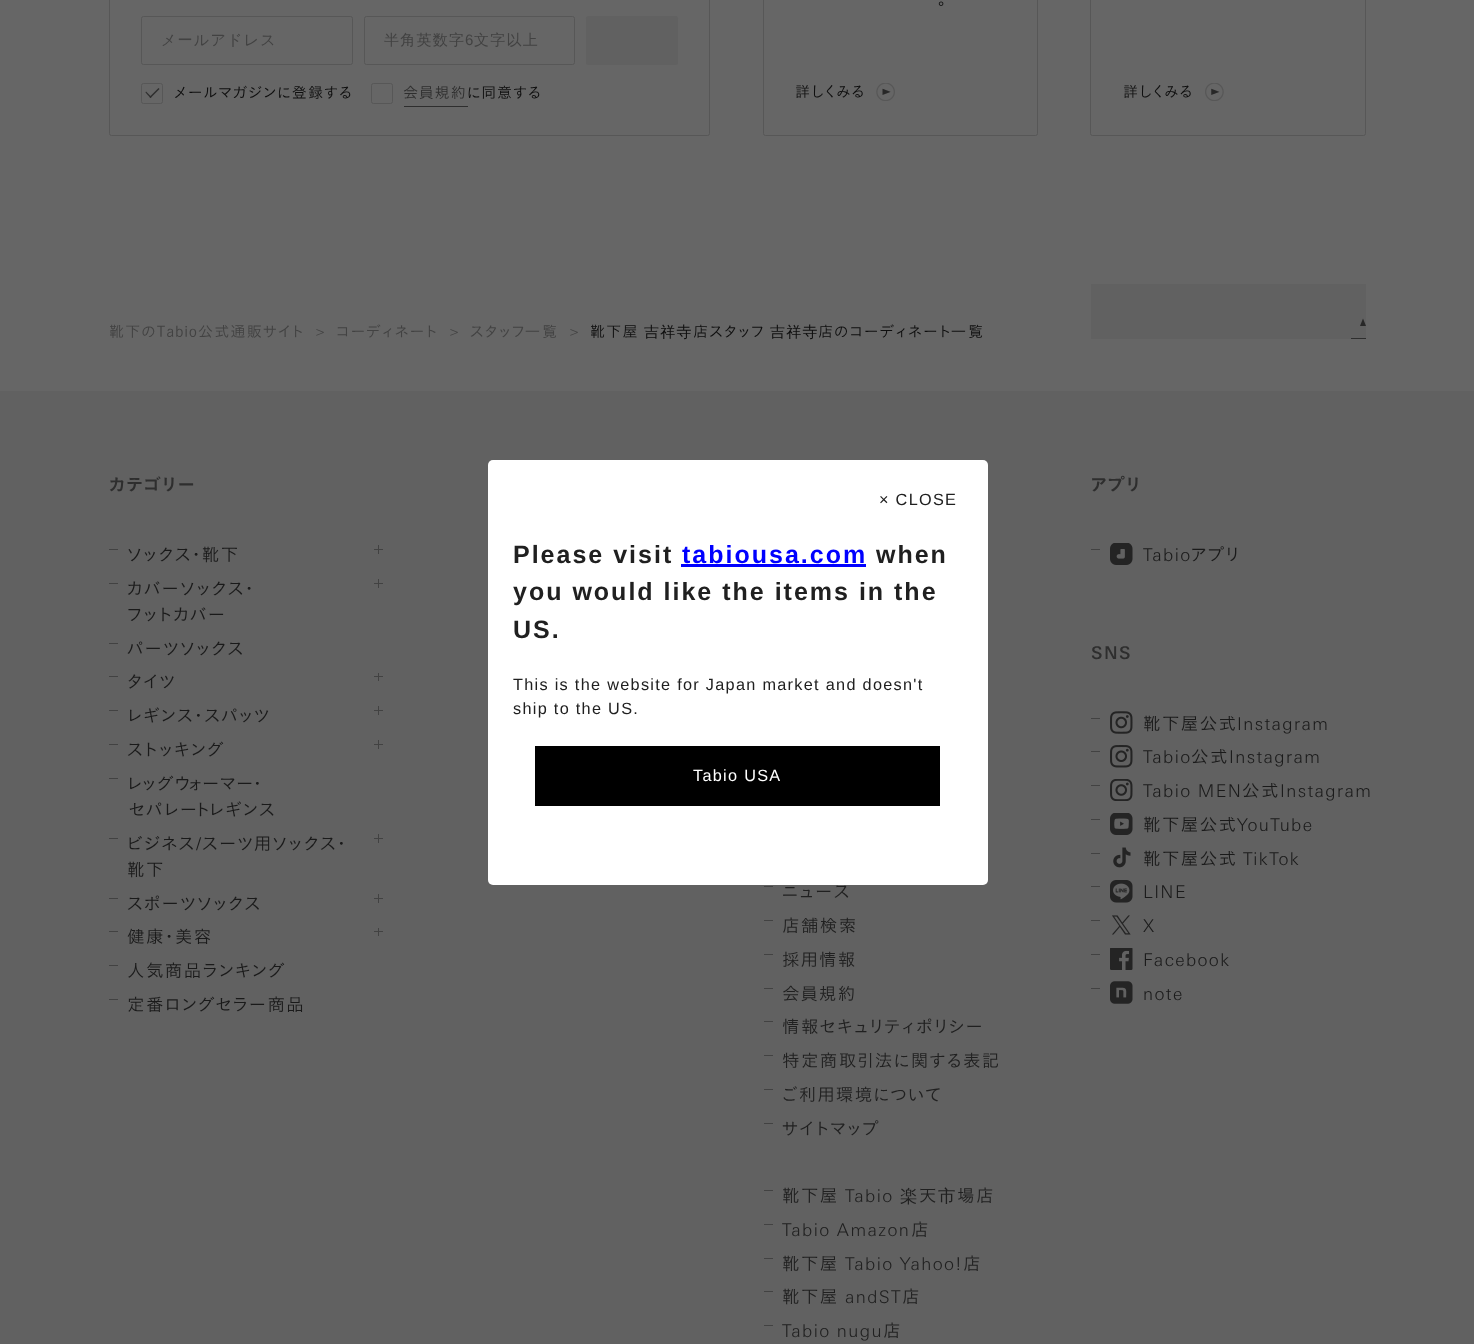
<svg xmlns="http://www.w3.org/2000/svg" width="1474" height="1344">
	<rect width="100%" height="100%" fill="#666666" />
	<rect x="109.5" y="-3.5" width="600" height="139" rx="2" fill="none" stroke="#575757" />
	<rect x="141.5" y="16.5" width="211" height="48" rx="2" fill="none" stroke="#575757" />
	<text x="161" y="45" font-family="WenQuanYi Zen Hei" font-size="15" font-weight="500" letter-spacing="1.25" fill="#424242">メールアドレス</text>
	<rect x="364.5" y="16.5" width="210" height="48" rx="2" fill="none" stroke="#575757" />
	<text x="384" y="45" font-family="WenQuanYi Zen Hei" font-size="15" font-weight="500" letter-spacing="1.25" fill="#424242">半角英数字</text>
	<text x="465" y="45" font-family="Liberation Sans" font-size="15" letter-spacing="1.25" fill="#424242">6</text>
	<text x="474" y="45" font-family="WenQuanYi Zen Hei" font-size="15" font-weight="500" letter-spacing="1.25" fill="#424242">文字以上</text>
	<rect x="586" y="16" width="92" height="49" rx="2.5" fill="#616161" />
	<rect x="141.5" y="83.5" width="21" height="20" rx="2" fill="none" stroke="#575757" />
	<text x="174" y="98" font-family="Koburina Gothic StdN" font-size="15" font-weight="300" letter-spacing="1.25" fill="#0E0E0E">メールマガジンに登録する</text>
	<path d="M149.5 97L158.5 88L159.5 89L150.5 98Z" fill="#2E2E2E" />
	<path d="M145.5 92.5L146 91.5L151.5 97L150.5 98Z" fill="#2E2E2E" />
	<rect x="371.5" y="83.5" width="21" height="20" rx="2" fill="none" stroke="#575757" />
	<text x="403" y="98" font-family="Koburina Gothic StdN" font-size="15" font-weight="300" letter-spacing="1.25" fill="#2E2E2E">会員規約</text>
	<rect x="404" y="106" width="64" height="1" fill="#2E2E2E" />
	<text x="467" y="98" font-family="Koburina Gothic StdN" font-size="15" font-weight="300" letter-spacing="1.25" fill="#0E0E0E">に同意する</text>
	<rect x="763.5" y="-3.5" width="274" height="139" rx="2" fill="none" stroke="#575757" />
	<g font-family="Koburina Gothic StdN" font-size="15" font-weight="300" letter-spacing="1.25" fill="#0E0E0E">
		<text x="938" y="5">。</text>
		<text x="795" y="97">詳しくみる</text>
	</g>
	<image x="876" y="83" width="19" height="18" href="assets/img1.png" />
	<rect x="1090.5" y="-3.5" width="275" height="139" rx="2" fill="none" stroke="#575757" />
	<text x="1123" y="97" font-family="Koburina Gothic StdN" font-size="15" font-weight="300" letter-spacing="1.25" fill="#0E0E0E">詳しくみる</text>
	<image x="1205" y="83" width="19" height="18" href="assets/img2.png" />
	<text x="109" y="337" font-family="Koburina Gothic StdN" font-size="15" font-weight="300" letter-spacing="1.25" fill="#424242">靴下のTabio公式通販サイト</text>
	<text x="315" y="336" font-family="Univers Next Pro" font-size="15" font-weight="300" letter-spacing="1.25" fill="#424242">&gt;</text>
	<text x="336" y="337" font-family="Koburina Gothic StdN" font-size="15" font-weight="300" letter-spacing="1.25" fill="#424242">コーディネート</text>
	<text x="449" y="336" font-family="Univers Next Pro" font-size="15" font-weight="300" letter-spacing="1.25" fill="#424242">&gt;</text>
	<text x="470" y="337" font-family="Koburina Gothic StdN" font-size="15" font-weight="300" letter-spacing="1.25" fill="#424242">スタッフ</text>
	<text x="525" y="337" font-family="WenQuanYi Zen Hei" font-size="15" font-weight="500" letter-spacing="1.25" fill="#424242">一</text>
	<text x="542" y="337" font-family="Koburina Gothic StdN" font-size="15" font-weight="300" letter-spacing="1.25" fill="#424242">覧</text>
	<text x="569" y="336" font-family="Univers Next Pro" font-size="15" font-weight="300" letter-spacing="1.25" fill="#424242">&gt;</text>
	<text x="590" y="337" font-family="Koburina Gothic StdN" font-size="15" font-weight="300" letter-spacing="1.25" fill="#0E0E0E">靴下屋</text>
	<text x="644" y="337" font-family="WenQuanYi Zen Hei" font-size="15" font-weight="500" letter-spacing="1.25" fill="#0E0E0E">吉祥寺</text>
	<text x="693" y="337" font-family="Koburina Gothic StdN" font-size="15" font-weight="300" letter-spacing="1.25" fill="#0E0E0E">店スタッフ</text>
	<text x="770" y="337" font-family="WenQuanYi Zen Hei" font-size="15" font-weight="500" letter-spacing="1.25" fill="#0E0E0E">吉祥寺</text>
	<text x="818" y="337" font-family="Koburina Gothic StdN" font-size="15" font-weight="300" letter-spacing="1.25" fill="#0E0E0E">店のコーディネート</text>
	<text x="951" y="337" font-family="WenQuanYi Zen Hei" font-size="15" font-weight="500" letter-spacing="1.25" fill="#0E0E0E">一</text>
	<text x="968" y="337" font-family="Koburina Gothic StdN" font-size="15" font-weight="300" letter-spacing="1.25" fill="#0E0E0E">覧</text>
	<rect x="1091" y="284" width="275" height="55" fill="#616161" />
	<path d="M1360 326H1366L1363 318.5Z" fill="#282828" />
	<rect x="1351" y="338" width="15" height="1" fill="#2E2E2E" />
	<rect x="0" y="391" width="1474" height="953" fill="#616161" />
	<text x="109" y="491" font-family="Koburina Gothic StdN" font-size="17.5" font-weight="600" letter-spacing="1.4" fill="#2E2E2E">カテゴリー</text>
	<rect x="109" y="549" width="9" height="1" fill="#424242" />
	<text x="127" y="561" font-family="Koburina Gothic StdN" font-size="17.5" font-weight="300" letter-spacing="1.4" fill="#1A1A1A">ソックス・靴下</text>
	<rect x="374" y="549" width="9" height="1" fill="#424242" />
	<rect x="378" y="545" width="1" height="9" fill="#424242" />
	<rect x="109" y="583" width="9" height="1" fill="#424242" />
	<text x="127" y="595" font-family="Koburina Gothic StdN" font-size="17.5" font-weight="300" letter-spacing="1.4" fill="#1A1A1A">カバーソックス・</text>
	<rect x="374" y="583" width="9" height="1" fill="#424242" />
	<rect x="378" y="579" width="1" height="9" fill="#424242" />
	<text x="127" y="621" font-family="Koburina Gothic StdN" font-size="17.5" font-weight="300" letter-spacing="1.4" fill="#1A1A1A">フットカバー</text>
	<rect x="109" y="643" width="9" height="1" fill="#424242" />
	<text x="127" y="655" font-family="Koburina Gothic StdN" font-size="17.5" font-weight="300" letter-spacing="1.4" fill="#1A1A1A">パーツソックス</text>
	<rect x="109" y="676" width="9" height="1" fill="#424242" />
	<text x="127" y="688" font-family="Koburina Gothic StdN" font-size="17.5" font-weight="300" letter-spacing="1.4" fill="#1A1A1A">タイツ</text>
	<rect x="374" y="676" width="9" height="1" fill="#424242" />
	<rect x="378" y="673" width="1" height="8" fill="#424242" />
	<rect x="109" y="710" width="9" height="1" fill="#424242" />
	<text x="127" y="722" font-family="Koburina Gothic StdN" font-size="17.5" font-weight="300" letter-spacing="1.4" fill="#1A1A1A">レギンス・スパッツ</text>
	<rect x="374" y="710" width="9" height="1" fill="#424242" />
	<rect x="378" y="706" width="1" height="9" fill="#424242" />
	<rect x="109" y="744" width="9" height="1" fill="#424242" />
	<text x="127" y="756" font-family="Koburina Gothic StdN" font-size="17.5" font-weight="300" letter-spacing="1.4" fill="#1A1A1A">ストッキング</text>
	<rect x="374" y="744" width="9" height="1" fill="#424242" />
	<rect x="378" y="740" width="1" height="9" fill="#424242" />
	<rect x="109" y="778" width="9" height="1" fill="#424242" />
	<g font-family="Koburina Gothic StdN" font-size="17.5" font-weight="300" letter-spacing="1.4" fill="#1A1A1A">
		<text x="127" y="790">レ</text>
		<text x="142" y="790">ッ</text>
		<text x="157" y="790">グウ</text>
		<text x="188" y="790">ォ</text>
		<text x="202" y="790">ー</text>
		<text x="220" y="790">マ</text>
		<text x="236" y="790">ー</text>
		<text x="253" y="790">・</text>
		<text x="129" y="816">セパレー</text>
		<text x="196" y="816">ト</text>
		<text x="209" y="816">レギン</text>
		<text x="259" y="816">ス</text>
	</g>
	<rect x="109" y="838" width="9" height="1" fill="#424242" />
	<text x="127" y="850" font-family="Koburina Gothic StdN" font-size="17.5" font-weight="300" letter-spacing="1.4" fill="#1A1A1A">ビジネス</text>
	<text x="196" y="850" font-family="Univers Next Pro" font-size="17.5" font-weight="300" letter-spacing="1.4" fill="#1A1A1A">/</text>
	<text x="202" y="850" font-family="Koburina Gothic StdN" font-size="17.5" font-weight="300" letter-spacing="1.4" fill="#1A1A1A">スーツ用ソックス・</text>
	<rect x="374" y="838" width="9" height="1" fill="#424242" />
	<rect x="378" y="834" width="1" height="9" fill="#424242" />
	<text x="127" y="876" font-family="Koburina Gothic StdN" font-size="17.5" font-weight="300" letter-spacing="1.4" fill="#1A1A1A">靴下</text>
	<rect x="109" y="898" width="9" height="1" fill="#424242" />
	<text x="127" y="910" font-family="Koburina Gothic StdN" font-size="17.5" font-weight="300" letter-spacing="1.4" fill="#1A1A1A">スポーツソックス</text>
	<rect x="374" y="898" width="9" height="1" fill="#424242" />
	<rect x="378" y="894" width="1" height="9" fill="#424242" />
	<rect x="109" y="931" width="9" height="1" fill="#424242" />
	<text x="127" y="943" font-family="Koburina Gothic StdN" font-size="17.5" font-weight="300" letter-spacing="1.4" fill="#1A1A1A">健康・美容</text>
	<rect x="374" y="931" width="9" height="1" fill="#424242" />
	<rect x="378" y="928" width="1" height="8" fill="#424242" />
	<rect x="109" y="965" width="9" height="1" fill="#424242" />
	<text x="127" y="977" font-family="Koburina Gothic StdN" font-size="17.5" font-weight="300" letter-spacing="1.4" fill="#1A1A1A">人気商品ランキング</text>
	<rect x="109" y="999" width="9" height="1" fill="#424242" />
	<text x="127" y="1011" font-family="Koburina Gothic StdN" font-size="17.5" font-weight="300" letter-spacing="1.4" fill="#1A1A1A">定番ロングセラー商品</text>
	<text x="1091" y="491" font-family="Koburina Gothic StdN" font-size="17.5" font-weight="600" letter-spacing="1.4" fill="#2E2E2E">アプリ</text>
	<rect x="1091" y="549" width="9" height="1" fill="#424242" />
	<image x="1110" y="543" width="23" height="22" href="assets/img3.png" />
	<text x="1143" y="561" font-family="Univers Next Pro" font-size="17.5" font-weight="300" letter-spacing="1.4" fill="#1A1A1A">Tabio</text>
	<text x="1191" y="561" font-family="Koburina Gothic StdN" font-size="17.5" font-weight="300" letter-spacing="1.4" fill="#1A1A1A">アプリ</text>
	<text x="1091" y="659" font-family="Univers Next Pro" font-size="17.5" font-weight="500" letter-spacing="1.4" fill="#2E2E2E">SNS</text>
	<rect x="1091" y="718" width="9" height="1" fill="#424242" />
	<image x="1110" y="711" width="23" height="23" href="assets/img4.png" />
	<text x="1143" y="730" font-family="Koburina Gothic StdN" font-size="17.5" font-weight="300" letter-spacing="1.4" fill="#1A1A1A">靴下屋公式</text>
	<text x="1237" y="730" font-family="Univers Next Pro" font-size="17.5" font-weight="300" letter-spacing="1.4" fill="#1A1A1A">Instagram</text>
	<rect x="1091" y="751" width="9" height="1" fill="#424242" />
	<image x="1110" y="745" width="23" height="23" href="assets/img5.png" />
	<text x="1143" y="763" font-family="Univers Next Pro" font-size="17.5" font-weight="300" letter-spacing="1.4" fill="#1A1A1A">Tabio</text>
	<text x="1191" y="763" font-family="Koburina Gothic StdN" font-size="17.5" font-weight="300" letter-spacing="1.4" fill="#1A1A1A">公式</text>
	<text x="1229" y="763" font-family="Univers Next Pro" font-size="17.5" font-weight="300" letter-spacing="1.4" fill="#1A1A1A">Instagram</text>
	<rect x="1091" y="785" width="9" height="1" fill="#424242" />
	<image x="1110" y="779" width="23" height="22" href="assets/img6.png" />
	<text x="1143" y="797" font-family="Univers Next Pro" font-size="17.5" font-weight="300" letter-spacing="1.4" fill="#1A1A1A">Tabio MEN</text>
	<text x="1242" y="797" font-family="Koburina Gothic StdN" font-size="17.5" font-weight="300" letter-spacing="1.4" fill="#1A1A1A">公式</text>
	<text x="1280" y="797" font-family="Univers Next Pro" font-size="17.5" font-weight="300" letter-spacing="1.4" fill="#1A1A1A">Instagram</text>
	<rect x="1091" y="819" width="9" height="1" fill="#424242" />
	<image x="1110" y="813" width="23" height="22" href="assets/img7.png" />
	<text x="1143" y="831" font-family="Koburina Gothic StdN" font-size="17.5" font-weight="300" letter-spacing="1.4" fill="#1A1A1A">靴下屋公式</text>
	<text x="1237" y="831" font-family="Univers Next Pro" font-size="17.5" font-weight="300" letter-spacing="1.4" fill="#1A1A1A">YouTube</text>
	<rect x="1091" y="853" width="9" height="1" fill="#424242" />
	<image x="1113" y="847" width="18" height="21" href="assets/img8.png" />
	<text x="1143" y="865" font-family="Koburina Gothic StdN" font-size="17.5" font-weight="300" letter-spacing="1.4" fill="#1A1A1A">靴下屋公式</text>
	<text x="1243" y="865" font-family="Univers Next Pro" font-size="17.5" font-weight="300" letter-spacing="1.4" fill="#1A1A1A">TikTok</text>
	<rect x="1091" y="886" width="9" height="1" fill="#424242" />
	<image x="1110" y="880" width="23" height="23" href="assets/img9.png" />
	<text x="1143" y="898" font-family="Univers Next Pro" font-size="17.5" font-weight="300" letter-spacing="1.4" fill="#1A1A1A">LINE</text>
	<rect x="1091" y="920" width="9" height="1" fill="#424242" />
	<image x="1112" y="915" width="19" height="20" href="assets/img10.png" />
	<text x="1143" y="932" font-family="Univers Next Pro" font-size="17.5" font-weight="300" letter-spacing="1.4" fill="#1A1A1A">X</text>
	<rect x="1091" y="954" width="9" height="1" fill="#424242" />
	<image x="1110" y="948" width="23" height="22" href="assets/img11.png" />
	<text x="1143" y="966" font-family="Univers Next Pro" font-size="17.5" font-weight="300" letter-spacing="1.4" fill="#1A1A1A">Facebook</text>
	<rect x="1091" y="988" width="9" height="1" fill="#424242" />
	<image x="1110" y="981" width="23" height="23" href="assets/img12.png" />
	<text x="1143" y="1000" font-family="Univers Next Pro" font-size="17.5" font-weight="300" letter-spacing="1.4" fill="#1A1A1A">note</text>
	<rect x="764" y="886" width="9" height="1" fill="#424242" />
	<text x="782" y="898" font-family="Koburina Gothic StdN" font-size="17.5" font-weight="300" letter-spacing="1.4" fill="#202020">ニュース</text>
	<rect x="764" y="920" width="9" height="1" fill="#424242" />
	<text x="782" y="932" font-family="Koburina Gothic StdN" font-size="17.5" font-weight="300" letter-spacing="1.4" fill="#202020">店舗検索</text>
	<rect x="764" y="954" width="9" height="1" fill="#424242" />
	<text x="782" y="966" font-family="Koburina Gothic StdN" font-size="17.5" font-weight="300" letter-spacing="1.4" fill="#202020">採用情報</text>
	<rect x="764" y="988" width="9" height="1" fill="#424242" />
	<text x="782" y="1000" font-family="Koburina Gothic StdN" font-size="17.5" font-weight="300" letter-spacing="1.4" fill="#202020">会員規約</text>
	<rect x="764" y="1021" width="9" height="1" fill="#424242" />
	<text x="782" y="1033" font-family="Koburina Gothic StdN" font-size="17.5" font-weight="300" letter-spacing="1.4" fill="#202020">情報セキュリティポリシー</text>
	<rect x="764" y="1055" width="9" height="1" fill="#424242" />
	<text x="782" y="1067" font-family="Koburina Gothic StdN" font-size="17.5" font-weight="300" letter-spacing="1.4" fill="#202020">特定商取引法に関する表記</text>
	<rect x="764" y="1089" width="9" height="1" fill="#424242" />
	<text x="782" y="1101" font-family="Koburina Gothic StdN" font-size="17.5" font-weight="300" letter-spacing="1.4" fill="#202020">ご利用環境について</text>
	<rect x="764" y="1123" width="9" height="1" fill="#424242" />
	<text x="782" y="1135" font-family="Koburina Gothic StdN" font-size="17.5" font-weight="300" letter-spacing="1.4" fill="#202020">サイトマップ</text>
	<rect x="764" y="1190" width="9" height="1" fill="#424242" />
	<text x="782" y="1202" font-family="Koburina Gothic StdN" font-size="17.5" font-weight="300" letter-spacing="1.4" fill="#202020">靴下屋</text>
	<text x="845" y="1202" font-family="Univers Next Pro" font-size="17.5" font-weight="300" letter-spacing="1.4" fill="#202020">Tabio</text>
	<text x="900" y="1202" font-family="WenQuanYi Zen Hei" font-size="17.5" font-weight="500" letter-spacing="1.4" fill="#202020">楽</text>
	<text x="919" y="1202" font-family="Koburina Gothic StdN" font-size="17.5" font-weight="300" letter-spacing="1.4" fill="#202020">天</text>
	<text x="938" y="1202" font-family="WenQuanYi Zen Hei" font-size="17.5" font-weight="500" letter-spacing="1.4" fill="#202020">市</text>
	<text x="957" y="1202" font-family="Koburina Gothic StdN" font-size="17.5" font-weight="300" letter-spacing="1.4" fill="#202020">場店</text>
	<rect x="764" y="1224" width="9" height="1" fill="#424242" />
	<text x="782" y="1236" font-family="Univers Next Pro" font-size="17.5" font-weight="300" letter-spacing="1.4" fill="#202020">Tabio Amazon</text>
	<text x="911" y="1236" font-family="Koburina Gothic StdN" font-size="17.5" font-weight="300" letter-spacing="1.4" fill="#202020">店</text>
	<rect x="764" y="1258" width="9" height="1" fill="#424242" />
	<text x="782" y="1270" font-family="Koburina Gothic StdN" font-size="17.5" font-weight="300" letter-spacing="1.4" fill="#202020">靴下屋</text>
	<text x="845" y="1270" font-family="Univers Next Pro" font-size="17.5" font-weight="300" letter-spacing="1.4" fill="#202020">Tabio Yahoo!</text>
	<text x="963" y="1270" font-family="Koburina Gothic StdN" font-size="17.5" font-weight="300" letter-spacing="1.4" fill="#202020">店</text>
	<rect x="764" y="1291" width="9" height="1" fill="#424242" />
	<text x="782" y="1303" font-family="Koburina Gothic StdN" font-size="17.5" font-weight="300" letter-spacing="1.4" fill="#202020">靴下屋</text>
	<text x="845" y="1303" font-family="Univers Next Pro" font-size="17.5" font-weight="300" letter-spacing="1.4" fill="#202020">andST</text>
	<text x="902" y="1303" font-family="Koburina Gothic StdN" font-size="17.5" font-weight="300" letter-spacing="1.4" fill="#202020">店</text>
	<rect x="764" y="1325" width="9" height="1" fill="#424242" />
	<text x="782" y="1337" font-family="Univers Next Pro" font-size="17.5" font-weight="300" letter-spacing="1.4" fill="#202020">Tabio nugu</text>
	<text x="883" y="1337" font-family="Koburina Gothic StdN" font-size="17.5" font-weight="300" letter-spacing="1.4" fill="#202020">店</text>
	<rect x="488" y="460" width="500" height="425" rx="5" fill="#FFFFFF" />
	<text x="879" y="505" font-family="Liberation Sans" font-size="16.25" letter-spacing="1.3" fill="#202020">× CLOSE</text>
	<text x="513" y="563" font-family="Liberation Sans" font-size="25" font-weight="700" letter-spacing="2" fill="#202020">Please visit</text>
	<text x="682" y="563" font-family="Liberation Sans" font-size="25" font-weight="700" letter-spacing="2" fill="#0000FF">tabiousa.com</text>
	<rect x="681" y="564" width="185" height="3" fill="#0000FF" />
	<g font-family="Liberation Sans" font-size="25" font-weight="700" letter-spacing="2" fill="#202020">
		<text x="876" y="563">when</text>
		<text x="513" y="600">you would like the items in the</text>
		<text x="513" y="638">US.</text>
	</g>
	<g font-family="Liberation Sans" font-size="16.25" letter-spacing="1.3" fill="#202020">
		<text x="513" y="690">This is the website for Japan market and doesn't</text>
		<text x="513" y="714">ship to the US.</text>
	</g>
	<rect x="535" y="746" width="405" height="60" fill="#000000" />
	<text x="693" y="781" font-family="Liberation Sans" font-size="16.25" letter-spacing="1.3" fill="#FFFFFF">Tabio USA</text>
</svg>
